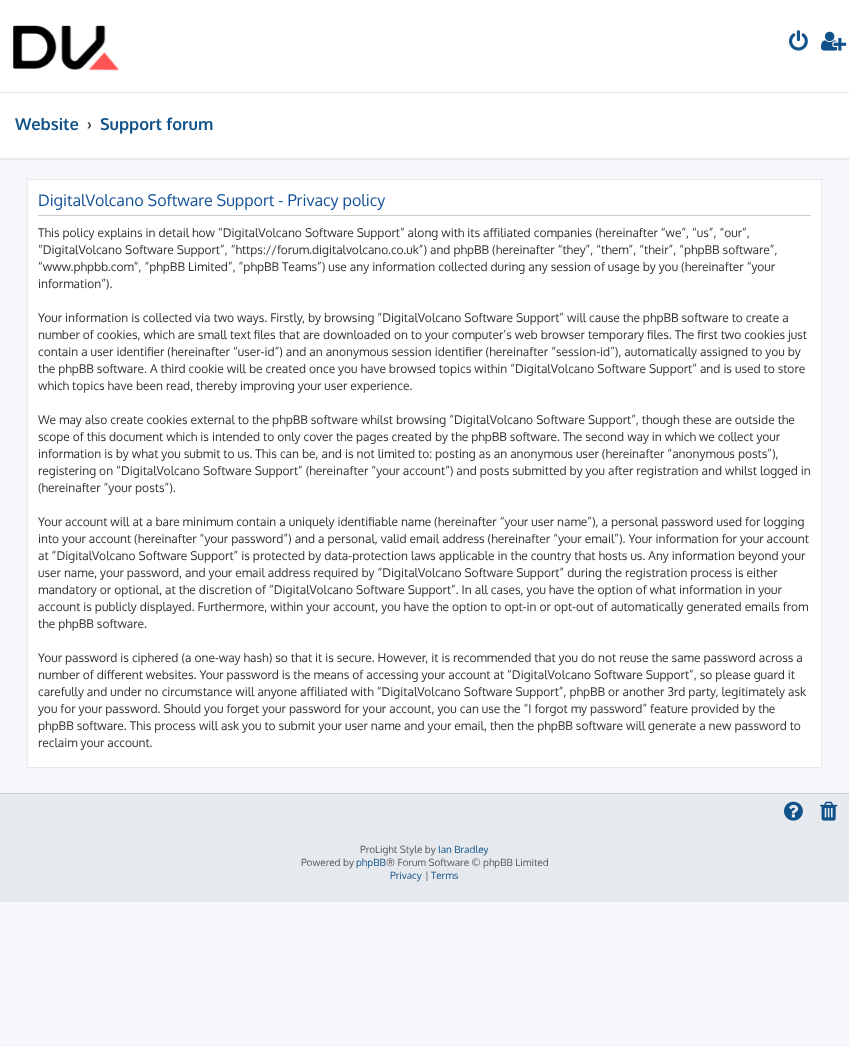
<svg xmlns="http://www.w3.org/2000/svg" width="849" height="1047">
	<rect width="100%" height="100%" fill="#F5F7FA" />
	<rect x="0" y="0" width="849" height="92" fill="#FFFFFF" />
	<rect x="0" y="92" width="849" height="1" fill="#E6E9ED" />
	<image x="13" y="25" width="106" height="46" href="assets/img1.png" />
	<image x="789" y="30" width="19" height="21" href="assets/img2.png" />
	<image x="821" y="31" width="26" height="20" href="assets/img3.png" />
	<rect x="0" y="93" width="849" height="65" fill="#FFFFFF" />
	<rect x="0" y="158" width="849" height="2" fill="#E6E9ED" />
	<text x="15" y="130" font-family="Oxygen" font-size="16.5" font-weight="700" fill="#105289">Website</text>
	<text x="87" y="130" font-family="Oxygen" font-size="16.5" font-weight="700" fill="#333333">›</text>
	<text x="100" y="130" font-family="Oxygen" font-size="16.5" font-weight="700" fill="#105289">Support forum</text>
	<rect x="27.5" y="179.5" width="794" height="588" fill="#FFFFFF" stroke="#E6E9ED" />
	<rect x="38" y="215" width="773" height="1" fill="#CCCCCC" />
	<text x="38" y="206" font-family="Oxygen" font-size="16" fill="#115098">DigitalVolcano Software Support - Privacy policy</text>
	<g font-family="Oxygen" font-size="12" fill="#333333">
		<text x="38" y="237">This policy explains in detail how “DigitalVolcano Software Support” along with its affiliated companies (hereinafter “we”, “us”, “our”,</text>
		<text x="38" y="254">“DigitalVolcano Software Support”, “https://forum.digitalvolcano.co.uk”) and phpBB (hereinafter “they”, “them”, “their”, “phpBB software”,</text>
		<text x="38" y="271">“www.phpbb.com”, “phpBB Limited”, “phpBB Teams”) use any information collected during any session of usage by you (hereinafter “your</text>
		<text x="38" y="288">information”).</text>
		<text x="38" y="322">Your information is collected via two ways. Firstly, by browsing “DigitalVolcano Software Support” will cause the phpBB software to create a</text>
		<text x="38" y="339">number of cookies, which are small text files that are downloaded on to your computer’s web browser temporary files. The first two cookies just</text>
		<text x="38" y="356">contain a user identifier (hereinafter “user-id”) and an anonymous session identifier (hereinafter “session-id”), automatically assigned to you by</text>
		<text x="38" y="373">the phpBB software. A third cookie will be created once you have browsed topics within “DigitalVolcano Software Support” and is used to store</text>
		<text x="38" y="390">which topics have been read, thereby improving your user experience.</text>
		<text x="38" y="424">We may also create cookies external to the phpBB software whilst browsing “DigitalVolcano Software Support”, though these are outside the</text>
		<text x="38" y="441">scope of this document which is intended to only cover the pages created by the phpBB software. The second way in which we collect your</text>
		<text x="38" y="458">information is by what you submit to us. This can be, and is not limited to: posting as an anonymous user (hereinafter “anonymous posts”),</text>
		<text x="38" y="475">registering on “DigitalVolcano Software Support” (hereinafter “your account”) and posts submitted by you after registration and whilst logged in</text>
		<text x="38" y="492">(hereinafter “your posts”).</text>
		<text x="38" y="526">Your account will at a bare minimum contain a uniquely identifiable name (hereinafter “your user name”), a personal password used for logging</text>
		<text x="38" y="543">into your account (hereinafter “your password”) and a personal, valid email address (hereinafter “your email”). Your information for your account</text>
		<text x="38" y="560">at “DigitalVolcano Software Support” is protected by data-protection laws applicable in the country that hosts us. Any information beyond your</text>
		<text x="38" y="577">user name, your password, and your email address required by “DigitalVolcano Software Support” during the registration process is either</text>
		<text x="38" y="594">mandatory or optional, at the discretion of “DigitalVolcano Software Support”. In all cases, you have the option of what information in your</text>
		<text x="38" y="611">account is publicly displayed. Furthermore, within your account, you have the option to opt-in or opt-out of automatically generated emails from</text>
		<text x="38" y="628">the phpBB software.</text>
		<text x="38" y="662">Your password is ciphered (a one-way hash) so that it is secure. However, it is recommended that you do not reuse the same password across a</text>
		<text x="38" y="679">number of different websites. Your password is the means of accessing your account at “DigitalVolcano Software Support”, so please guard it</text>
		<text x="38" y="696">carefully and under no circumstance will anyone affiliated with “DigitalVolcano Software Support”, phpBB or another 3rd party, legitimately ask</text>
		<text x="38" y="713">you for your password. Should you forget your password for your account, you can use the “I forgot my password” feature provided by the</text>
		<text x="38" y="730">phpBB software. This process will ask you to submit your user name and your email, then the phpBB software will generate a new password to</text>
		<text x="38" y="747">reclaim your account.</text>
	</g>
	<rect x="0" y="794" width="849" height="108" fill="#E6E9ED" />
	<rect x="0" y="793" width="849" height="1" fill="#CCCCCC" />
	<image x="784" y="801" width="19" height="20" href="assets/img4.png" />
	<image x="820" y="801" width="18" height="20" href="assets/img5.png" />
	<text x="360" y="853" font-family="Oxygen" font-size="10" fill="#555555">ProLight Style by</text>
	<text x="438" y="853" font-family="Oxygen" font-size="10" fill="#105289">Ian Bradley</text>
	<text x="301" y="866" font-family="Oxygen" font-size="10" fill="#555555">Powered by</text>
	<text x="356" y="866" font-family="Oxygen" font-size="10" fill="#105289">phpBB</text>
	<text x="386" y="866" font-family="Oxygen" font-size="10" fill="#555555">® Forum Software © phpBB Limited</text>
	<text x="390" y="879" font-family="Oxygen" font-size="10" fill="#105289">Privacy</text>
	<text x="425" y="879" font-family="Oxygen" font-size="10" fill="#555555">|</text>
	<text x="431" y="879" font-family="Oxygen" font-size="10" fill="#105289">Terms</text>
</svg>
